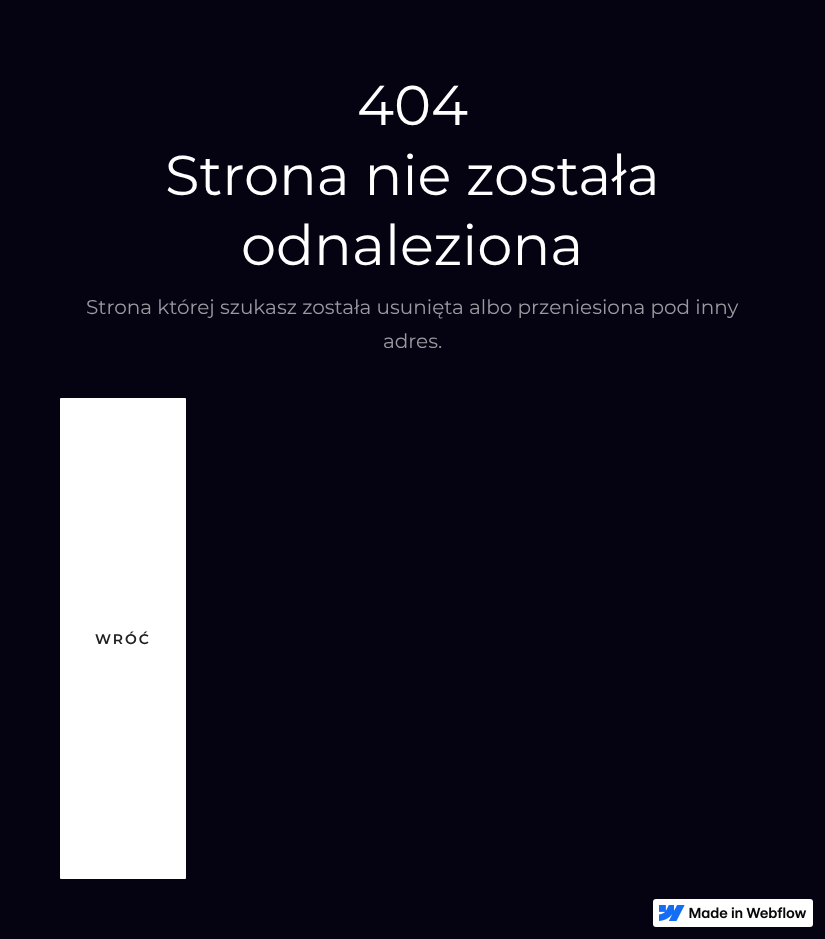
<svg xmlns="http://www.w3.org/2000/svg" width="825" height="939">
	<rect width="100%" height="100%" fill="#050212" />
	<g font-family="Montserrat" font-size="56" fill="#FFFFFF">
		<text x="357" y="125">404</text>
		<text x="165" y="195">Strona nie została</text>
		<text x="241" y="265">odnaleziona</text>
	</g>
	<g font-family="Montserrat" font-size="20" fill="#9B9AA0">
		<text x="86" y="314">Strona której szukasz została usunięta albo przeniesiona pod inny</text>
		<text x="383" y="348">adres.</text>
	</g>
	<rect x="60" y="398" width="126" height="481" rx="1" fill="#FFFFFF" />
	<text x="95" y="644" font-family="Montserrat" font-size="14" font-weight="600" letter-spacing="2" fill="#202020">WRÓĆ</text>
	<rect x="653" y="899" width="160" height="28" rx="3" fill="#FFFFFF" />
	<image x="659" y="905" width="26" height="16" href="assets/img1.png" />
	<image x="689" y="907" width="118" height="12" href="assets/img2.png" />
</svg>
